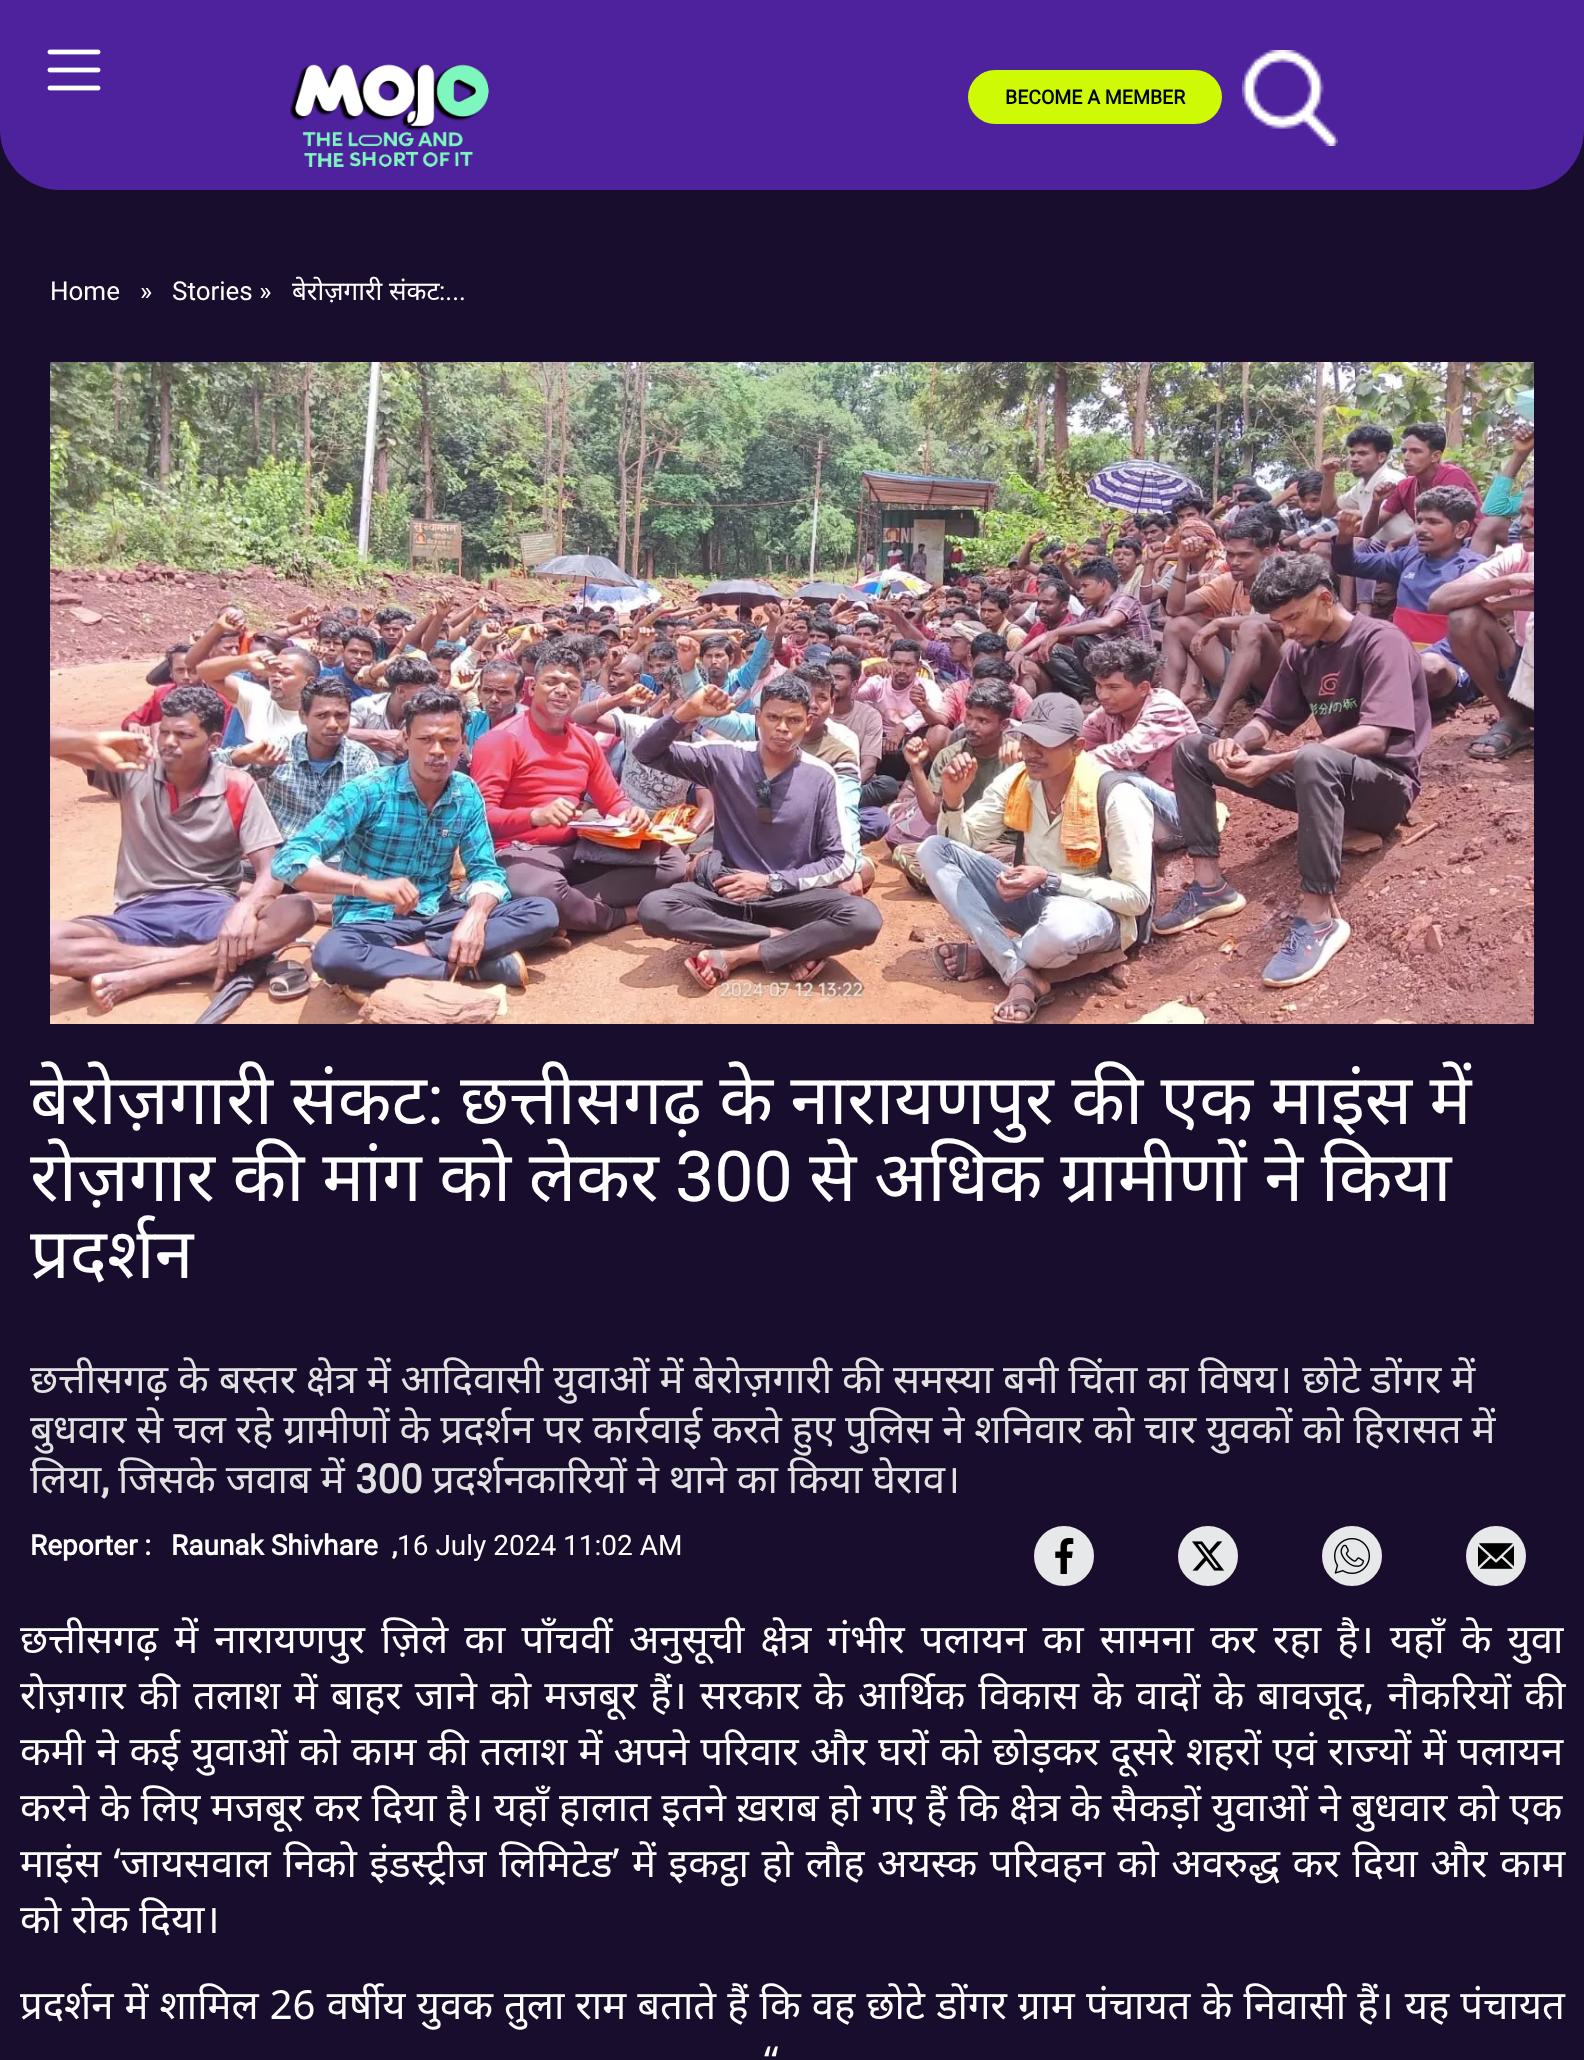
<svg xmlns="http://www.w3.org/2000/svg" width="1584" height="2060">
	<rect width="100%" height="100%" fill="#180D2C" />
	<path d="M0 0H1584V130C1584 163 1557 190 1524 190H60C27 190 0 163 0 130Z" fill="#4E219D" />
	<image x="47" y="49" width="54" height="42" href="assets/img1.png" />
	<image x="290" y="64" width="199" height="104" href="assets/img2.png" />
	<rect x="968" y="70" width="254" height="54" rx="27" fill="#CEFA05" />
	<text x="1005" y="104" font-family="Roboto" font-size="19.5" font-weight="700" fill="#000000">BECOME A MEMBER</text>
	<image x="1242" y="50" width="96" height="96" href="assets/img3.png" />
	<g font-family="Roboto" font-size="26" fill="#FFFFFF">
		<text x="50" y="300">Home</text>
		<text x="140" y="300">»</text>
		<text x="172" y="300">Stories »</text>
	</g>
	<text x="292" y="300" font-family="Noto Sans" font-size="26" fill="#FFFFFF">बेरोज़गारी संकट</text>
	<text x="439" y="300" font-family="Roboto" font-size="26" fill="#FFFFFF">:...</text>
	<image x="50" y="362" width="1484" height="662" href="assets/img4.png" />
	<text x="30" y="1124" word-spacing="-0.75" font-family="Noto Sans" font-size="70" fill="#FFFFFF">बेरोज़गारी संकट</text>
	<text x="427" y="1124" font-family="Roboto" font-size="70" fill="#FFFFFF">:</text>
	<g font-family="Noto Sans" font-size="70" fill="#FFFFFF">
		<text x="460" y="1124" word-spacing="-0.75">छत्तीसगढ़ के नारायणपुर की एक माइंस में</text>
		<text x="30" y="1201" word-spacing="-0.5">रोज़गार की मांग को लेकर</text>
	</g>
	<text x="675" y="1201" font-family="Roboto" font-size="70" fill="#FFFFFF">300</text>
	<g font-family="Noto Sans" font-size="70" fill="#FFFFFF">
		<text x="809" y="1201" word-spacing="-0.5">से अधिक ग्रामीणों ने किया</text>
		<text x="30" y="1278">प्रदर्शन</text>
	</g>
	<g font-family="Noto Sans" font-size="40" fill="#E1E1E1">
		<text x="30" y="1393" word-spacing="-0.5">छत्तीसगढ़ के बस्तर क्षेत्र में आदिवासी युवाओं में बेरोज़गारी की समस्या बनी चिंता का विषय। छोटे डोंगर में</text>
		<text x="30" y="1443" word-spacing="-0.5">बुधवार से चल रहे ग्रामीणों के प्रदर्शन पर कार्रवाई करते हुए पुलिस ने शनिवार को चार युवकों को हिरासत में</text>
		<text x="30" y="1493">लिया</text>
	</g>
	<text x="101" y="1493" font-family="Roboto" font-size="40" font-weight="700" fill="#E1E1E1">,</text>
	<text x="118" y="1493" word-spacing="-0.5" font-family="Noto Sans" font-size="40" fill="#E1E1E1">जिसके जवाब में</text>
	<text x="355" y="1493" font-family="Roboto" font-size="40" font-weight="700" fill="#E1E1E1">300</text>
	<text x="432" y="1493" word-spacing="-0.5" font-family="Noto Sans" font-size="40" fill="#E1E1E1">प्रदर्शनकारियों ने थाने का किया घेराव।</text>
	<g font-family="Roboto" font-size="28" font-weight="700" fill="#FFFFFF">
		<text x="30" y="1555">Reporter :</text>
		<text x="171" y="1555" xml:space="preserve">Raunak Shivhare  ,</text>
	</g>
	<text x="397" y="1555" font-family="Roboto" font-size="28" fill="#FFFFFF">16 July 2024 11:02 AM</text>
	<circle cx="1064" cy="1556" r="29" fill="#E7E8E9" stroke="#E7E8E9" stroke-width="2" />
	<image x="1055" y="1538" width="19" height="36" href="assets/img5.png" />
	<circle cx="1208" cy="1556" r="29" fill="#E7E8E9" stroke="#E7E8E9" stroke-width="2" />
	<image x="1192" y="1541" width="33" height="30" href="assets/img6.png" />
	<circle cx="1352" cy="1556" r="29" fill="#E7E8E9" stroke="#E7E8E9" stroke-width="2" />
	<image x="1334" y="1538" width="36" height="36" href="assets/img7.png" />
	<circle cx="1496" cy="1556" r="29" fill="#E7E8E9" stroke="#E7E8E9" stroke-width="2" />
	<image x="1478" y="1543" width="36" height="26" href="assets/img8.png" />
	<g font-family="Noto Sans" font-size="40" fill="#FFFFFF">
		<text x="20" y="1653" word-spacing="5.75">छत्तीसगढ़ में नारायणपुर ज़िले का पाँचवीं अनुसूची क्षेत्र गंभीर पलायन का सामना कर रहा है। यहाँ के युवा</text>
		<text x="20" y="1709" word-spacing="2.75">रोज़गार की तलाश में बाहर जाने को मजबूर हैं। सरकार के आर्थिक विकास के वादों के बावजूद, नौकरियों की</text>
		<text x="20" y="1765" word-spacing="0.8">कमी ने कई युवाओं को काम की तलाश में अपने परिवार और घरों को छोड़कर दूसरे शहरों एवं राज्यों में पलायन</text>
		<text x="20" y="1821">करने के लिए मजबूर कर दिया है। यहाँ हालात इतने ख़राब हो गए हैं कि क्षेत्र के सैकड़ों युवाओं ने बुधवार को एक</text>
		<text x="20" y="1877" word-spacing="2.25">माइंस ‘जायसवाल निको इंडस्ट्रीज लिमिटेड’ में इकट्ठा हो लौह अयस्क परिवहन को अवरुद्ध कर दिया और काम</text>
		<text x="20" y="1933">को रोक दिया।</text>
		<text x="20" y="2019" word-spacing="0.75">प्रदर्शन में शामिल 26 वर्षीय युवक तुला राम बताते हैं कि वह छोटे डोंगर ग्राम पंचायत के निवासी हैं। यह पंचायत</text>
		<text x="764" y="2075" word-spacing="1">“</text>
	</g>
</svg>
